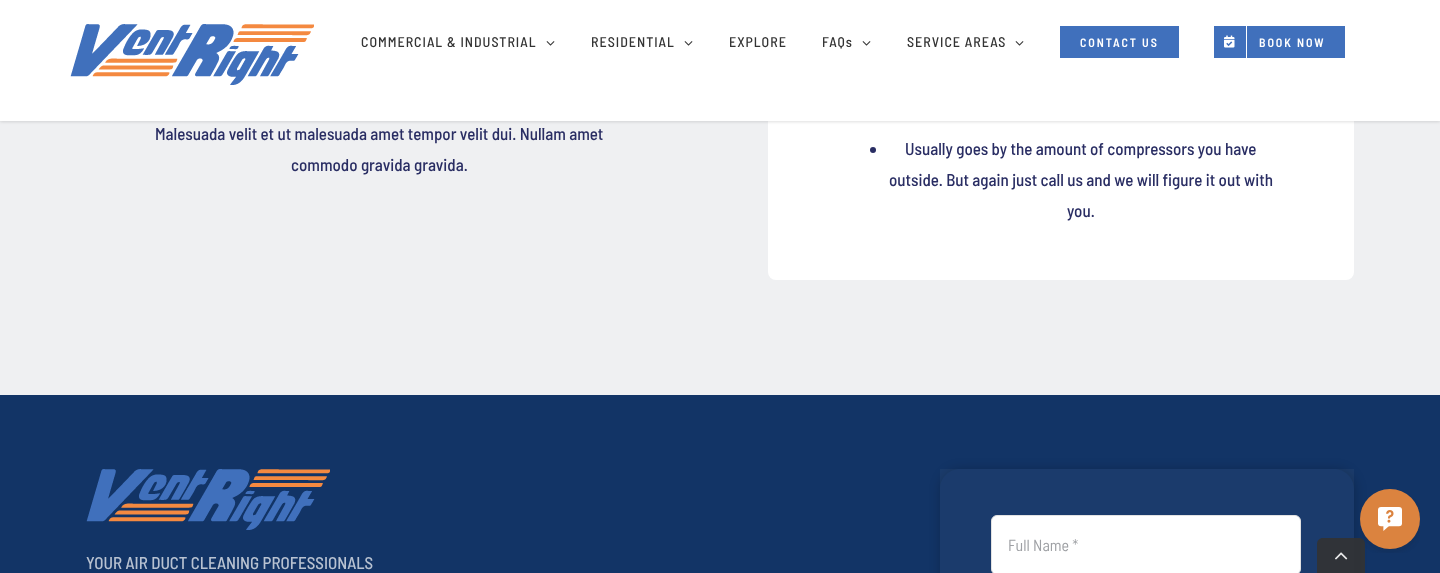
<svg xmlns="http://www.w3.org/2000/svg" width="1440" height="573">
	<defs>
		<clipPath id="clip1"><path d="M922 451H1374V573H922ZM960 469H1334C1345 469 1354 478 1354 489V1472C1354 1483 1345 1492 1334 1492H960C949 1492 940 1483 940 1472V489C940 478 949 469 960 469Z" clip-rule="evenodd" /></clipPath>
	</defs>
	<rect width="100%" height="100%" fill="#EFF0F2" />
	<rect x="768" y="-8" width="586" height="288" rx="8" fill="#FFFFFF" />
	<rect x="0" y="1" width="1440" height="121" fill="#000000" fill-opacity="0.12" filter="blur(1.5px)" />
	<rect x="0" y="0" width="1440" height="121" fill="#FFFFFF" />
	<image x="70" y="24" width="244" height="61" href="assets/img1.png" />
	<text x="361" y="47" font-family="Barlow Semi Condensed" font-size="14" font-weight="500" letter-spacing="1" fill="#333333">COMMERCIAL &amp; INDUSTRIAL</text>
	<image x="546" y="41" width="9" height="5" href="assets/img2.png" />
	<text x="591" y="47" font-family="Barlow Semi Condensed" font-size="14" font-weight="500" letter-spacing="1" fill="#333333">RESIDENTIAL</text>
	<image x="684" y="41" width="9" height="5" href="assets/img2.png" />
	<g font-family="Barlow Semi Condensed" font-size="14" font-weight="500" letter-spacing="1" fill="#333333">
		<text x="729" y="47">EXPLORE</text>
		<text x="822" y="47">FAQs</text>
	</g>
	<image x="862" y="41" width="9" height="5" href="assets/img2.png" />
	<text x="907" y="47" font-family="Barlow Semi Condensed" font-size="14" font-weight="500" letter-spacing="1" fill="#333333">SERVICE AREAS</text>
	<image x="1015" y="41" width="9" height="5" href="assets/img2.png" />
	<rect x="1060" y="26" width="119" height="32" fill="#4070BC" />
	<text x="1080" y="47" font-family="Barlow Semi Condensed" font-size="12" font-weight="600" letter-spacing="1.9" fill="#FFFFFF">CONTACT US</text>
	<rect x="1214" y="26" width="131" height="32" fill="#4070BC" />
	<rect x="1246" y="26" width="1" height="32" fill="#FFFFFF" />
	<image x="1224" y="35" width="11" height="13" href="assets/img3.png" />
	<text x="1259" y="47" font-family="Barlow Semi Condensed" font-size="12" font-weight="600" letter-spacing="1.9" fill="#FFFFFF">BOOK NOW</text>
	<g font-family="Barlow Semi Condensed" font-size="17" font-weight="500" fill="#292D63">
		<text x="155" y="140">Malesuada velit et ut malesuada amet tempor velit dui. Nullam amet</text>
		<text x="291" y="171">commodo gravida gravida.</text>
	</g>
	<circle cx="873" cy="150" r="3" fill="#292D63" />
	<g font-family="Barlow Semi Condensed" font-size="17" font-weight="500" fill="#292D63">
		<text x="905" y="155">Usually goes by the amount of compressors you have</text>
		<text x="889" y="186">outside. But again just call us and we will figure it out with</text>
		<text x="1067" y="217">you.</text>
	</g>
	<rect x="0" y="395" width="1440" height="178" fill="#123466" />
	<g clip-path="url(#clip1)">
		<rect x="940" y="469" width="416" height="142" rx="21" fill="#000000" fill-opacity="0.2" filter="blur(5.5px)" />
	</g>
	<rect x="940" y="469" width="414" height="104" fill="#FFFFFF" fill-opacity="0.04" />
	<rect x="991.5" y="515.5" width="309" height="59" rx="5.5" fill="#FFFFFF" stroke="#E2E2E2" />
	<text x="1008" y="551" font-family="Barlow Semi Condensed" font-size="16" fill="#9EA0A4">Full Name *</text>
	<image x="86" y="469" width="244" height="61" href="assets/img4.png" />
	<text x="86" y="569" font-family="Barlow Semi Condensed" font-size="17" font-weight="500" fill="#B8C2D1">YOUR AIR DUCT CLEANING PROFESSIONALS</text>
	<image x="1360" y="489" width="60" height="64" href="assets/img6.png" />
	<path d="M1323 538H1359C1362.5 538 1365 540.5 1365 544V573H1317V544C1317 540.5 1319.5 538 1323 538Z" fill="#333333" fill-opacity="0.9" />
	<image x="1335" y="552" width="13" height="8" href="assets/img5.png" />
</svg>
